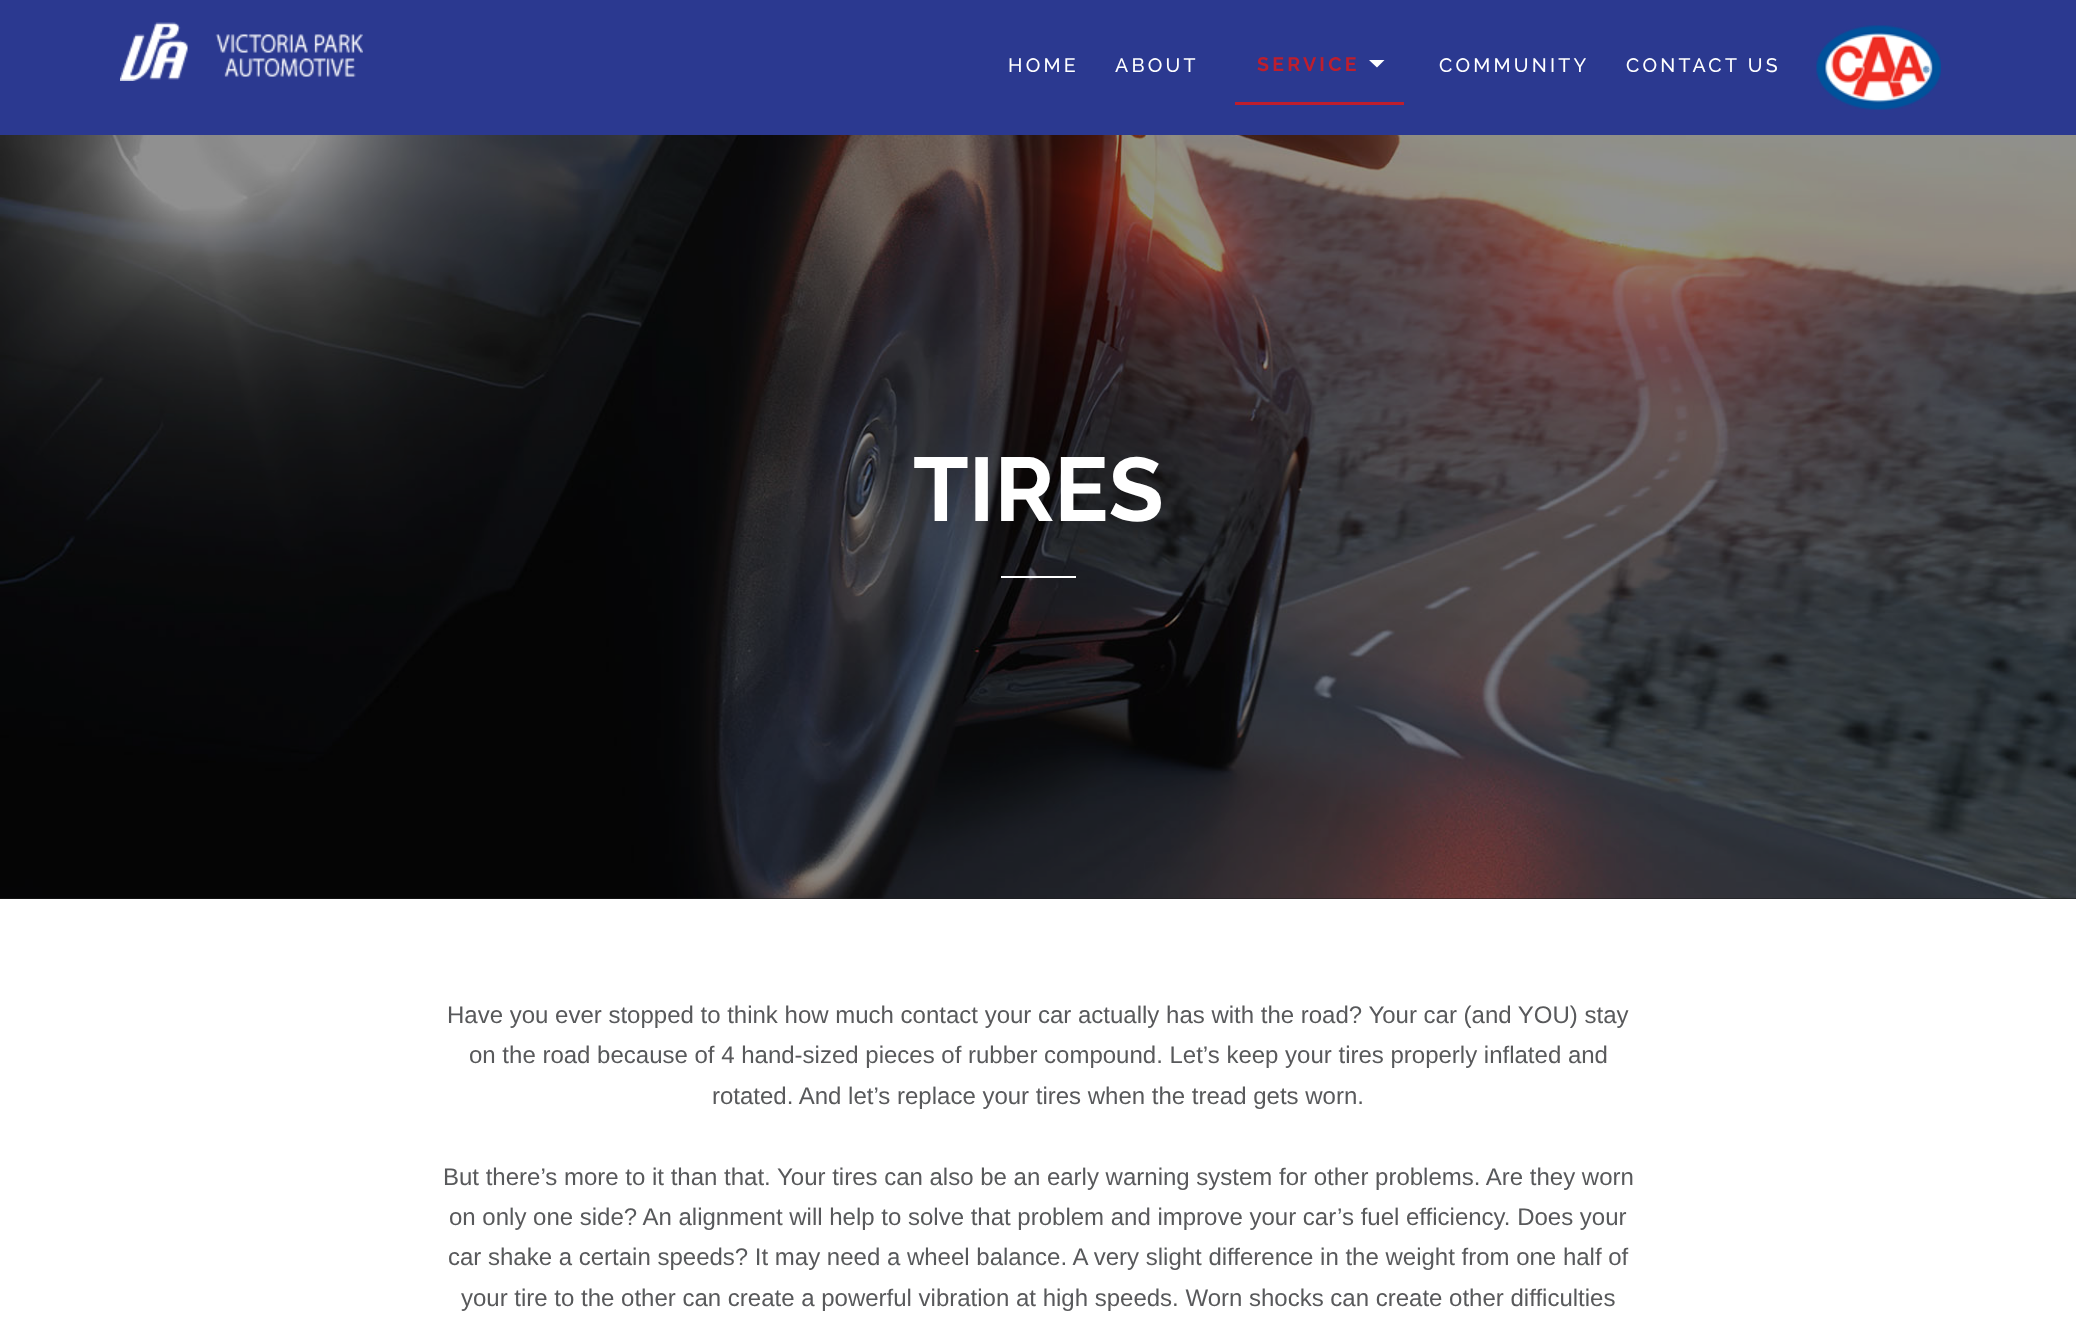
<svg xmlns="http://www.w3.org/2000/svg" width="2076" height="1318">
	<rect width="100%" height="100%" fill="#FFFFFF" />
	<rect x="0" y="0" width="2076" height="135" fill="#2B3990" />
	<image x="120" y="22" width="243" height="59" href="assets/img1.png" />
	<g font-family="Raleway" font-size="19.5" font-weight="500" letter-spacing="3.25" fill="#FFFFFF">
		<text x="1008" y="72">HOME</text>
		<text x="1115" y="72">ABOUT</text>
	</g>
	<rect x="1235" y="102" width="169" height="3" fill="#BE1E2D" />
	<text x="1257" y="71" font-family="Raleway" font-size="19.5" font-weight="700" letter-spacing="3.25" fill="#BE1E2D">SERVICE</text>
	<path d="M1369 60H1384.5L1377 67.5Z" fill="#FFFFFF" />
	<g font-family="Raleway" font-size="19.5" font-weight="500" letter-spacing="3.25" fill="#FFFFFF">
		<text x="1439" y="72">COMMUNITY</text>
		<text x="1626" y="72">CONTACT US</text>
	</g>
	<image x="1816" y="25" width="125" height="85" href="assets/img2.png" />
	<rect x="0" y="898" width="2076" height="1" fill="#1E1E1E" />
	<image x="0" y="135" width="2076" height="764" href="assets/img3.png" />
	<text x="913" y="521" font-family="Raleway" font-size="90" font-weight="700" fill="#FFFFFF">TIRES</text>
	<rect x="1001" y="576" width="75" height="2" fill="#FFFFFF" />
	<g font-family="Liberation Sans" font-size="24" fill="#58595B">
		<text x="447" y="1023">Have you ever stopped to think how much contact your car actually has with the road? Your car (and YOU) stay</text>
		<text x="469" y="1063">on the road because of 4 hand-sized pieces of rubber compound. Let’s keep your tires properly inflated and</text>
		<text x="712" y="1104">rotated. And let’s replace your tires when the tread gets worn.</text>
		<text x="443" y="1185">But there’s more to it than that. Your tires can also be an early warning system for other problems. Are they worn</text>
		<text x="449" y="1225">on only one side? An alignment will help to solve that problem and improve your car’s fuel efficiency. Does your</text>
		<text x="448" y="1265">car shake a certain speeds? It may need a wheel balance. A very slight difference in the weight from one half of</text>
		<text x="461" y="1306">your tire to the other can create a powerful vibration at high speeds. Worn shocks can create other difficulties</text>
	</g>
</svg>
